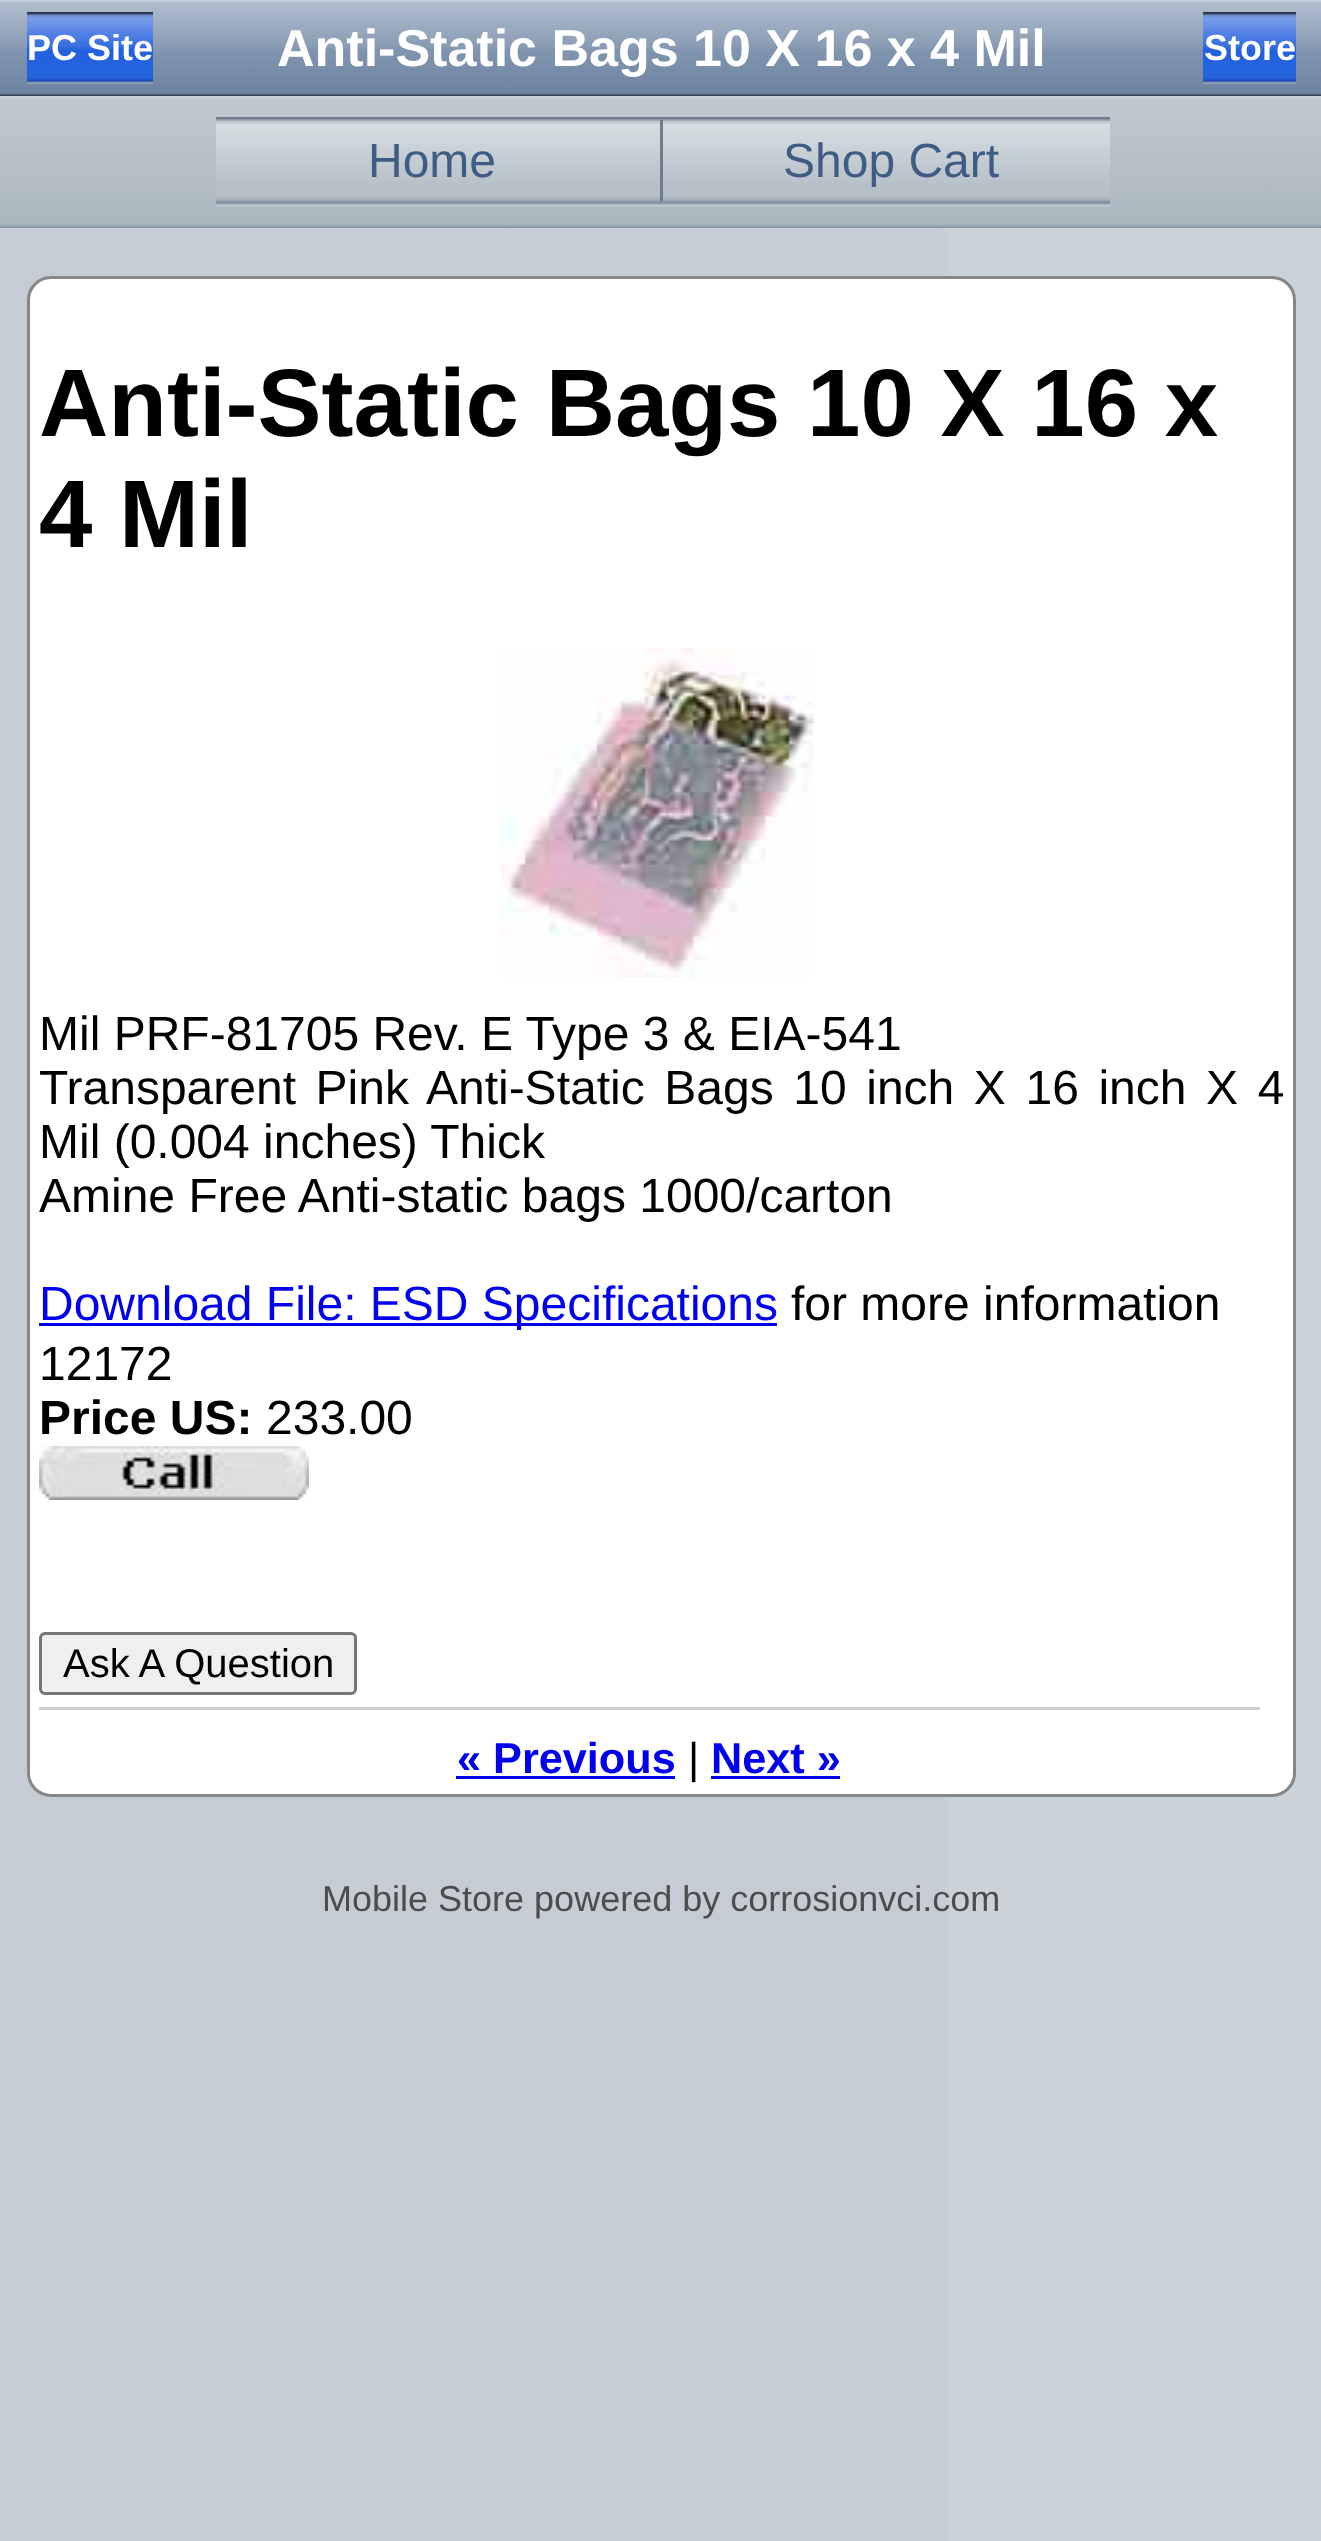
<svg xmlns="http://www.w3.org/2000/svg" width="1321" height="2541">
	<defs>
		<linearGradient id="g1" gradientUnits="userSpaceOnUse" x1="0" y1="0" x2="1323" y2="0"><stop offset="0" stop-color="#C5CCD4" /><stop offset="0.71" stop-color="#C5CCD4" /><stop offset="0.72" stop-color="#CBD2D8" /><stop offset="1" stop-color="#CBD2D8" /></linearGradient>
		<linearGradient id="g2" gradientUnits="userSpaceOnUse" x1="0" y1="0" x2="0" y2="96"><stop offset="0" stop-color="#CDD5DF" /><stop offset="0.03" stop-color="#B0BCCD" /><stop offset="0.5" stop-color="#889BB3" /><stop offset="0.51" stop-color="#8195AF" /><stop offset="0.97" stop-color="#6D84A2" /><stop offset="1" stop-color="#2D3642" /></linearGradient>
		<linearGradient id="g3" gradientUnits="userSpaceOnUse" x1="0" y1="96" x2="0" y2="228"><stop offset="0" stop-color="#CDD4D9" /><stop offset="0.03" stop-color="#C0C9CF" /><stop offset="0.97" stop-color="#ABB7BF" /><stop offset="1" stop-color="#81929F" /></linearGradient>
	</defs>
	<rect width="100%" height="100%" fill="#FFFFFF" />
	<rect x="0" y="228" width="1321" height="2313" fill="url(#g1)" />
	<rect x="0" y="0" width="1321" height="96" fill="url(#g2)" />
	<image x="27" y="12" width="126" height="72" href="assets/img1.png" />
	<text x="27" y="60" font-family="Liberation Sans" font-size="36" font-weight="700" fill="#FFFFFF">PC Site</text>
	<text x="277" y="66" font-family="Liberation Sans" font-size="52" font-weight="700" fill="#FFFFFF">Anti-Static Bags 10 X 16 x 4 Mil</text>
	<image x="1203" y="12" width="93" height="72" href="assets/img2.png" />
	<text x="1204" y="60" font-family="Liberation Sans" font-size="36" font-weight="700" fill="#FFFFFF">Store</text>
	<rect x="0" y="96" width="1321" height="132" fill="url(#g3)" />
	<image x="216" y="117" width="894" height="90" href="assets/img3.png" />
	<rect x="660" y="120" width="3" height="81" fill="#6D7E91" />
	<g font-family="Liberation Sans" font-size="48" fill="#3F5C84">
		<text x="368" y="177">Home</text>
		<text x="783" y="177">Shop Cart</text>
	</g>
	<rect x="28.5" y="277.5" width="1266" height="1518" rx="22.5" fill="#FFFFFF" stroke="#878787" stroke-width="3" />
	<g font-family="Liberation Sans" font-size="96" font-weight="700" fill="#000000">
		<text x="39" y="436">Anti-Static Bags 10 X 16 x</text>
		<text x="39" y="547">4 Mil</text>
	</g>
	<image x="501" y="648" width="313" height="330" href="assets/img4.png" />
	<g font-family="Liberation Sans" font-size="48" fill="#000000">
		<text x="39" y="1050">Mil PRF-81705 Rev. E Type 3 &amp; EIA-541</text>
		<text x="39" y="1104" word-spacing="6.25">Transparent Pink Anti-Static Bags 10 inch X 16 inch X 4</text>
		<text x="39" y="1158">Mil (0.004 inches) Thick</text>
		<text x="39" y="1212">Amine Free Anti-static bags 1000/carton</text>
	</g>
	<rect x="39" y="1323" width="738" height="3" fill="#0000EE" />
	<text x="39" y="1320" font-family="Liberation Sans" font-size="48" fill="#0000EE">Download File: ESD Specifications</text>
	<g font-family="Liberation Sans" font-size="48" fill="#000000">
		<text x="791" y="1320">for more information</text>
		<text x="39" y="1380">12172</text>
	</g>
	<text x="39" y="1434" font-family="Liberation Sans" font-size="48" font-weight="700" fill="#000000">Price US:</text>
	<text x="266" y="1434" font-family="Liberation Sans" font-size="48" fill="#000000">233.00</text>
	<image x="39" y="1446" width="270" height="54" href="assets/img5.png" />
	<rect x="40.5" y="1633.5" width="315" height="60" rx="4.5" fill="#EFEFEF" stroke="#767676" stroke-width="3" />
	<text x="63" y="1677" font-family="Liberation Sans" font-size="40" fill="#000000">Ask A Question</text>
	<rect x="39" y="1707" width="1221" height="3" fill="#CCCCCC" />
	<text x="457" y="1773" font-family="Liberation Sans" font-size="43.25" font-weight="700" fill="#0000EE">« Previous</text>
	<rect x="456" y="1776" width="219" height="3" fill="#0000EE" />
	<text x="688" y="1773" font-family="Liberation Sans" font-size="43.25" fill="#000000">|</text>
	<text x="711" y="1773" font-family="Liberation Sans" font-size="43.25" font-weight="700" fill="#0000EE">Next »</text>
	<rect x="711" y="1776" width="129" height="3" fill="#0000EE" />
	<text x="322" y="1911" font-family="Liberation Sans" font-size="36" fill="#4C4C4C">Mobile Store powered by corrosionvci.com</text>
</svg>
